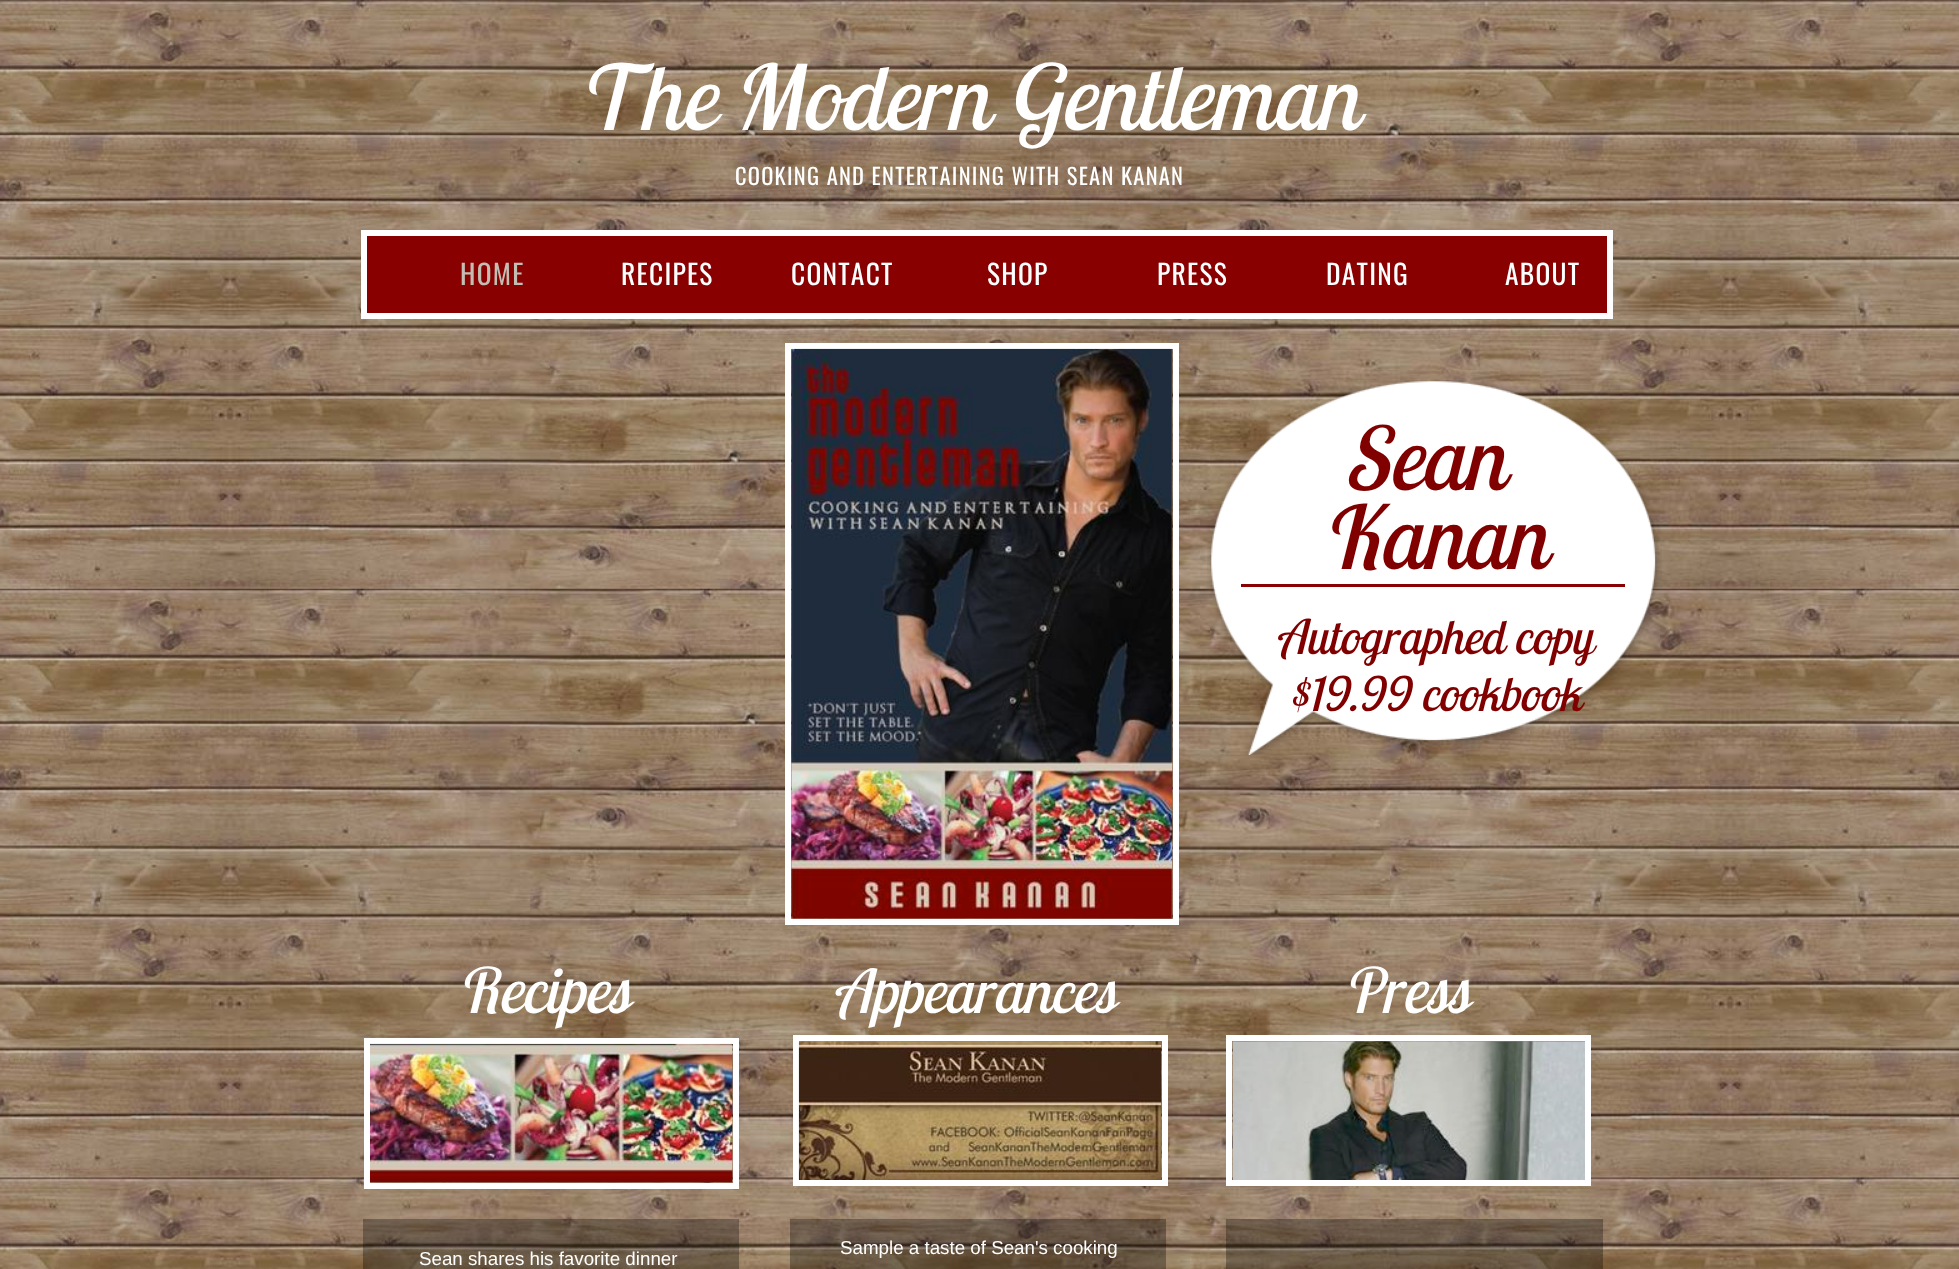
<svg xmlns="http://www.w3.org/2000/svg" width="1959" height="1269">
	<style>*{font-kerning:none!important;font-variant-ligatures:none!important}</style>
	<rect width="100%" height="100%" fill="#FFFFFF" />
	<image x="0" y="0" width="1959" height="1269" href="assets/img1.png" />
	<text x="576" y="130" font-family="Lobster Two" font-size="90" font-style="italic" fill="#FFFFFF">The Modern Gentleman</text>
	<text x="735" y="185" font-family="Oswald" font-size="22.5" letter-spacing="1.25" fill="#FFFFFF">COOKING AND ENTERTAINING WITH SEAN KANAN</text>
	<rect x="364" y="233" width="1246" height="83" fill="#880000" stroke="#FFFFFF" stroke-width="6" />
	<text x="460" y="285" font-family="Oswald" font-size="27.5" letter-spacing="1.25" fill="#C2BEB4">HOME</text>
	<g font-family="Oswald" font-size="27.5" letter-spacing="1.25" fill="#FFFFFF">
		<text x="621" y="285">RECIPES</text>
		<text x="791" y="285">CONTACT</text>
		<text x="987" y="285">SHOP</text>
		<text x="1157" y="285">PRESS</text>
		<text x="1326" y="285">DATING</text>
		<text x="1505" y="285">ABOUT</text>
	</g>
	<rect x="788" y="346" width="388" height="576" fill="none" stroke="#FFFFFF" stroke-width="6" />
	<image x="791" y="348" width="382" height="571" href="assets/img2.png" />
	<image x="1207" y="380" width="455" height="375" href="assets/img3.png" />
	<g font-family="Lobster Two" font-size="87.5" font-style="italic" fill="#800000">
		<text x="1343" y="490">Sean</text>
		<text x="1320" y="569">Kanan</text>
	</g>
	<rect x="1241" y="584" width="384" height="3" fill="#880000" />
	<g font-family="Lobster Two" font-size="47.5" font-style="italic" fill="#800000">
		<text x="1276" y="654">Autographed copy</text>
		<text x="1289" y="711">$19.99 cookbook</text>
	</g>
	<text x="456" y="1013" font-family="Lobster Two" font-size="62.5" font-style="italic" fill="#FFFFFF">Recipes</text>
	<text x="833" y="1013" font-family="Lobster Two" font-size="60" font-style="italic" fill="#FFFFFF">Appearances</text>
	<text x="1342" y="1013" font-family="Lobster Two" font-size="62.5" font-style="italic" fill="#FFFFFF">Press</text>
	<rect x="367" y="1041" width="369" height="145" fill="none" stroke="#FFFFFF" stroke-width="6" />
	<image x="370" y="1043" width="363" height="140" href="assets/img4.png" />
	<rect x="796" y="1038" width="369" height="145" fill="none" stroke="#FFFFFF" stroke-width="6" />
	<image x="798" y="1041" width="364" height="139" href="assets/img5.png" />
	<rect x="1229" y="1038" width="359" height="145" fill="none" stroke="#FFFFFF" stroke-width="6" />
	<image x="1232" y="1041" width="353" height="139" href="assets/img6.png" />
	<rect x="363" y="1219" width="376" height="50" fill="#000000" fill-opacity="0.3" />
	<rect x="790" y="1219" width="376" height="50" fill="#000000" fill-opacity="0.3" />
	<rect x="1226" y="1219" width="377" height="50" fill="#000000" fill-opacity="0.3" />
	<g font-family="Liberation Sans" font-size="18.75" fill="#FFFFFF">
		<text x="419" y="1265">Sean shares his favorite dinner</text>
		<text x="840" y="1254">Sample a taste of Sean's cooking</text>
	</g>
</svg>
